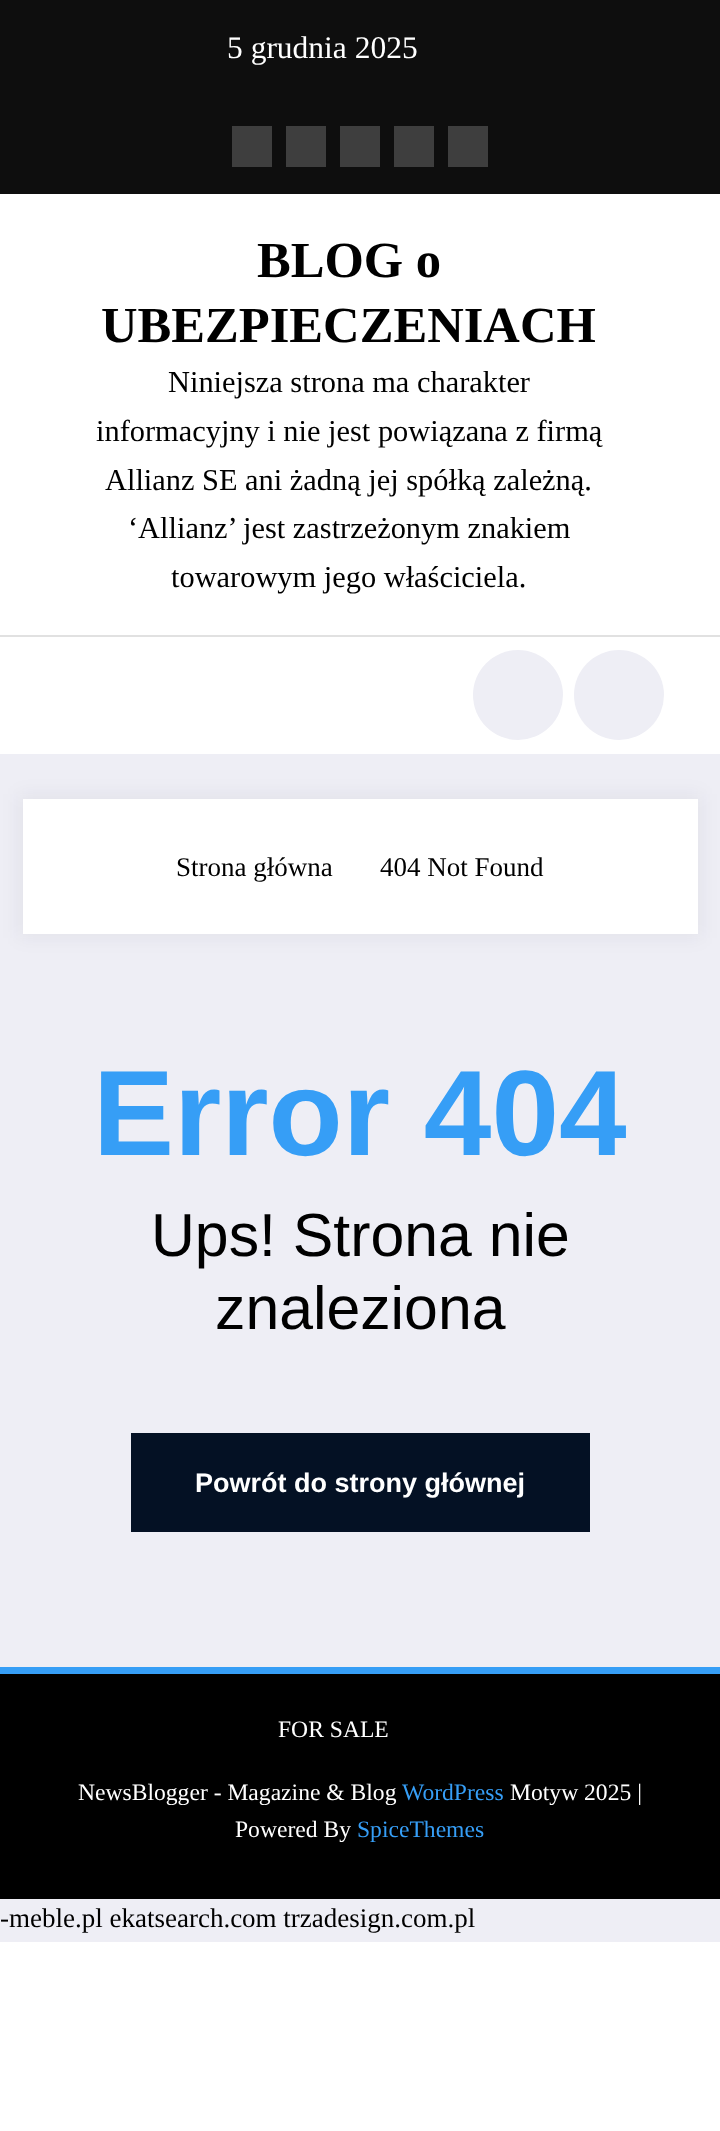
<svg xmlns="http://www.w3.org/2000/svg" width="720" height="2131">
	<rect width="100%" height="100%" fill="#FFFFFF" />
	<rect x="0" y="754" width="720" height="1188" fill="#EEEEF5" />
	<rect x="0" y="0" width="720" height="194" fill="#0E0E0E" />
	<text x="227" y="58" font-family="Liberation Serif" font-size="31.5" fill="#FFFFFF">5 grudnia 2025</text>
	<rect x="232" y="126" width="40" height="41" fill="#3E3E3E" />
	<rect x="286" y="126" width="40" height="41" fill="#3E3E3E" />
	<rect x="340" y="126" width="40" height="41" fill="#3E3E3E" />
	<rect x="394" y="126" width="40" height="41" fill="#3E3E3E" />
	<rect x="448" y="126" width="40" height="41" fill="#3E3E3E" />
	<g font-family="Liberation Serif" font-size="50.6" font-weight="700" fill="#000000">
		<text x="257" y="277">BLOG o</text>
		<text x="101" y="342">UBEZPIECZENIACH</text>
	</g>
	<g font-family="Liberation Serif" font-size="30.4" fill="#000000">
		<text x="168" y="392">Niniejsza strona ma charakter</text>
		<text x="96" y="441">informacyjny i nie jest powiązana z firmą</text>
		<text x="105" y="490">Allianz SE ani żadną jej spółką zależną.</text>
		<text x="128" y="538">‘Allianz’ jest zastrzeżonym znakiem</text>
		<text x="171" y="587">towarowym jego właściciela.</text>
	</g>
	<rect x="0" y="635" width="720" height="2" fill="#E1E1E1" />
	<circle cx="518" cy="695" r="45" fill="#EEEEF5" />
	<circle cx="619" cy="695" r="45" fill="#EEEEF5" />
	<rect x="18" y="794" width="684" height="144" fill="#171723" fill-opacity="0.05" filter="blur(9px)" />
	<rect x="23" y="799" width="675" height="135" fill="#FFFFFF" />
	<g font-family="Liberation Serif" font-size="27" fill="#000000">
		<text x="176" y="876">Strona główna</text>
		<text x="380" y="876">404 Not Found</text>
	</g>
	<text x="93" y="1155" font-family="Liberation Sans" font-size="121.5" font-weight="700" fill="#369EF6">Error 404</text>
	<g font-family="Liberation Sans" font-size="60.75" fill="#000000">
		<text x="151" y="1256">Ups! Strona nie</text>
		<text x="215" y="1329">znaleziona</text>
	</g>
	<rect x="131" y="1433" width="459" height="99" fill="#041124" />
	<text x="195" y="1492" font-family="Liberation Sans" font-size="27" font-weight="700" fill="#FFFFFF">Powrót do strony głównej</text>
	<rect x="0" y="1667" width="720" height="7" fill="#369EF6" />
	<rect x="0" y="1674" width="720" height="225" fill="#000000" />
	<g font-family="Liberation Serif" font-size="23.6" fill="#FFFFFF">
		<text x="278" y="1737">FOR SALE</text>
		<text x="78" y="1800">NewsBlogger - Magazine &amp; Blog</text>
	</g>
	<text x="402" y="1800" font-family="Liberation Serif" font-size="23.6" fill="#369EF6">WordPress</text>
	<g font-family="Liberation Serif" font-size="23.6" fill="#FFFFFF">
		<text x="510" y="1800">Motyw 2025 |</text>
		<text x="235" y="1837">Powered By</text>
	</g>
	<text x="357" y="1837" font-family="Liberation Serif" font-size="23.6" fill="#369EF6">SpiceThemes</text>
	<text x="0" y="1927" font-family="Liberation Serif" font-size="27" fill="#000000">-meble.pl ekatsearch.com trzadesign.com.pl</text>
</svg>
